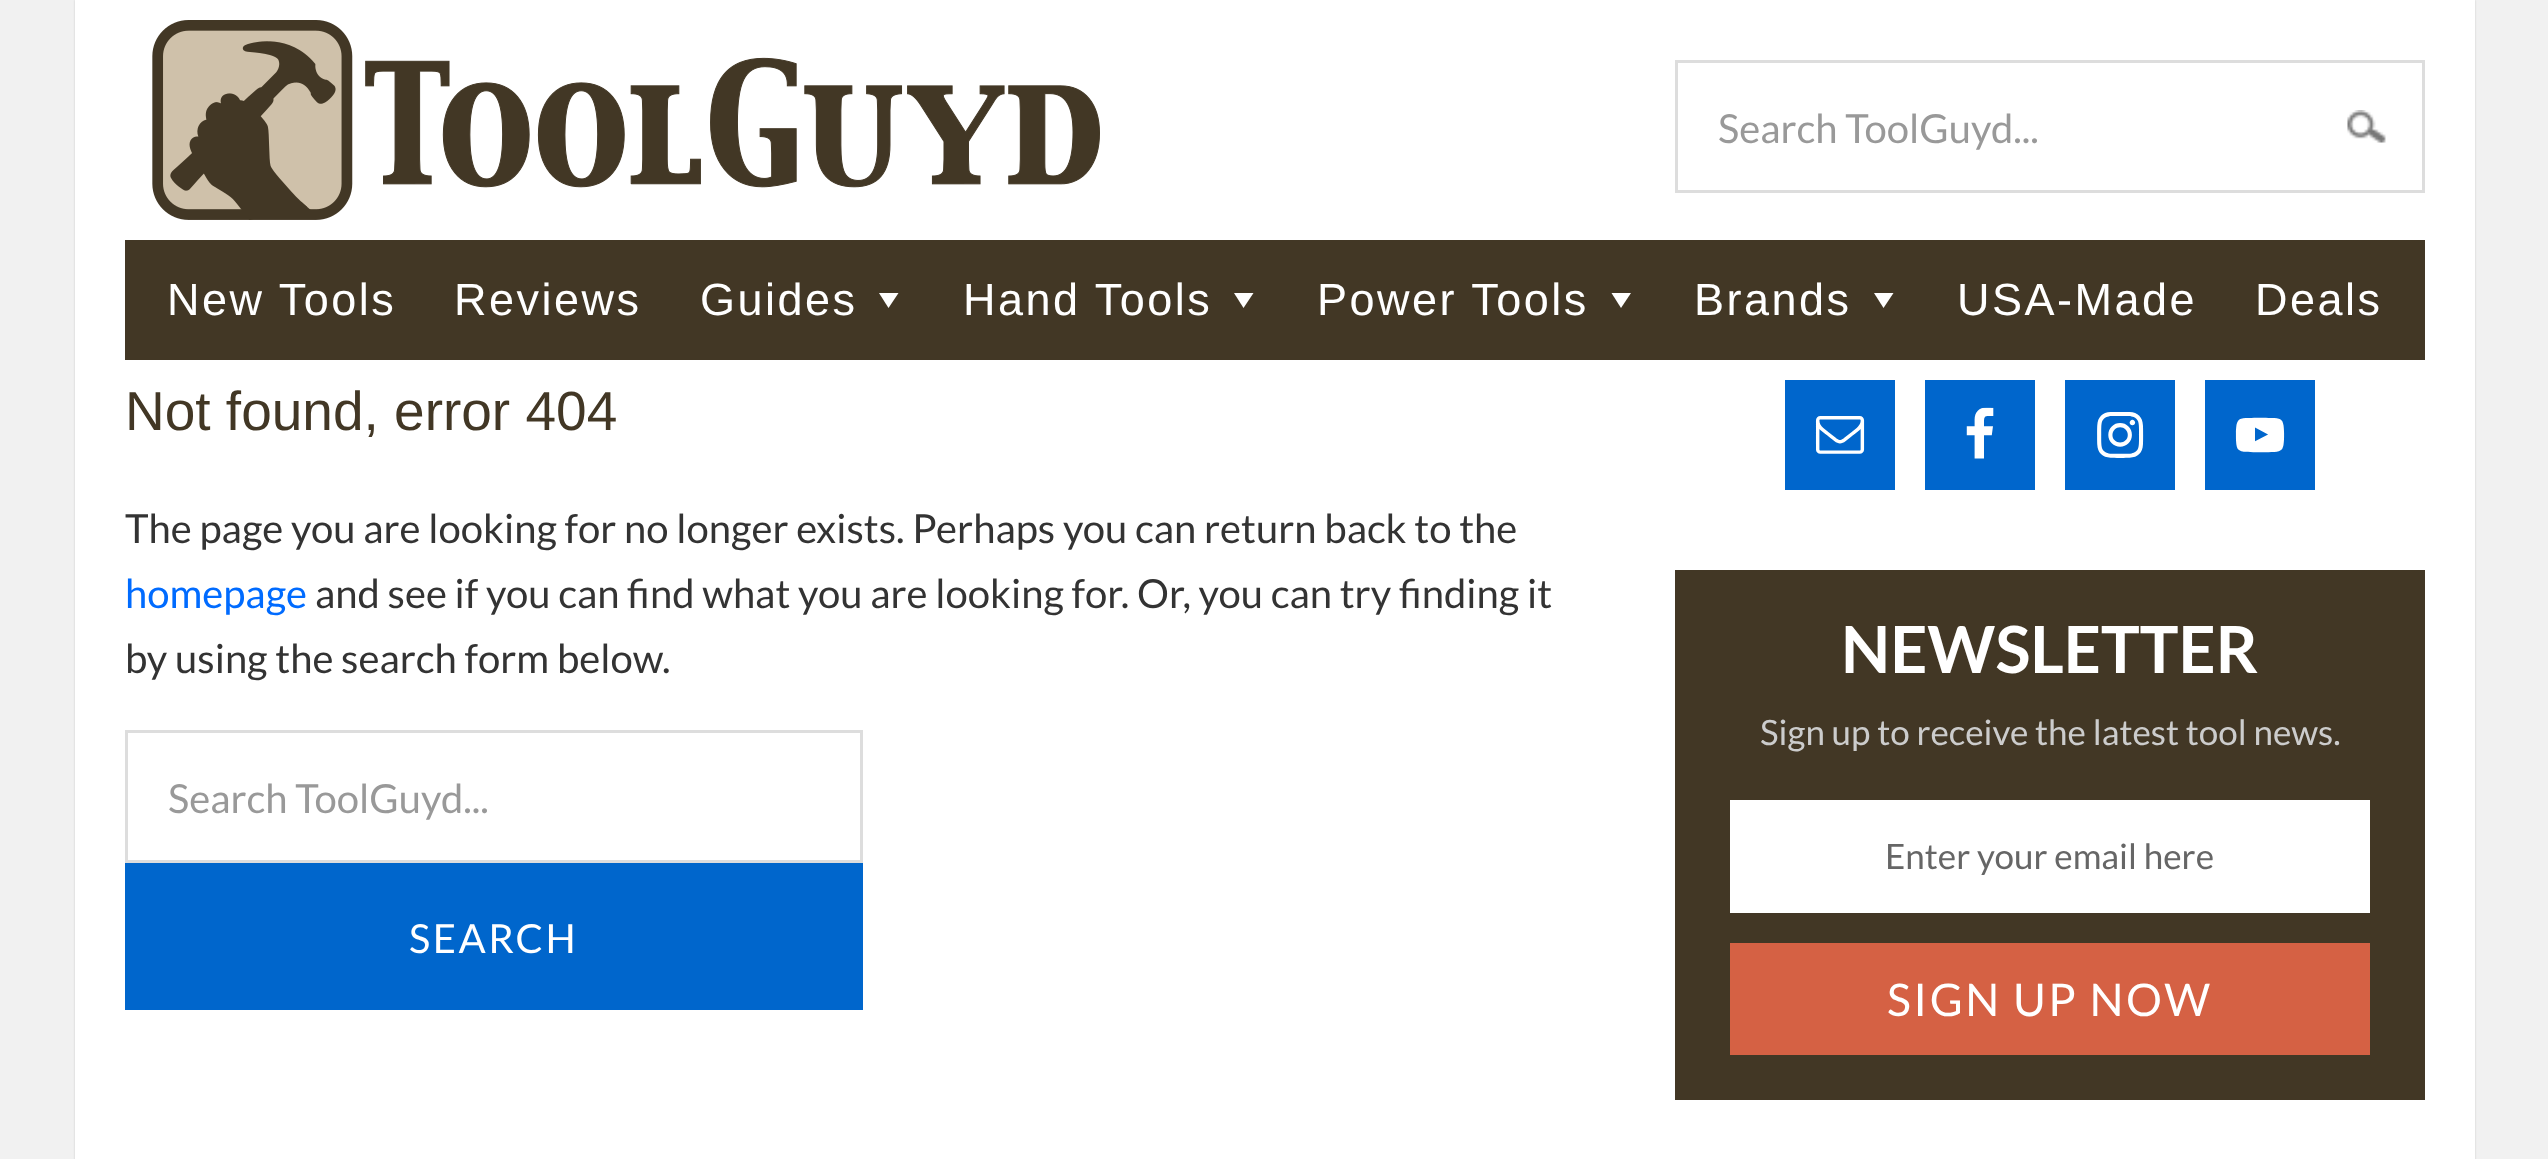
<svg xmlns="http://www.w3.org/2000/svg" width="2548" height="1159">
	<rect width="100%" height="100%" fill="#F1F1F1" />
	<rect x="75" y="0" width="2400" height="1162" fill="#000000" fill-opacity="0.15" filter="blur(1px)" />
	<rect x="75" y="0" width="2400" height="1159" fill="#FFFFFF" />
	<image x="152" y="20" width="948" height="200" href="assets/img1.png" />
	<image x="2347" y="110" width="39" height="33" href="assets/img2.png" />
	<rect x="1676.5" y="61.5" width="747" height="130" fill="none" stroke="#DDDDDD" stroke-width="3" />
	<text x="1718" y="143" font-family="Lato" font-size="40" fill="#999999">Search ToolGuyd...</text>
	<rect x="125" y="240" width="2300" height="120" fill="#423725" />
	<g font-family="Liberation Sans" font-size="45" letter-spacing="2.5" fill="#FFFFFF">
		<text x="167" y="315">New Tools</text>
		<text x="454" y="315">Reviews</text>
		<text x="700" y="315">Guides</text>
	</g>
	<path d="M898.5 293L888.5 308L879 293Z" fill="#FFFFFF" />
	<text x="963" y="315" font-family="Liberation Sans" font-size="45" letter-spacing="2.5" fill="#FFFFFF">Hand Tools</text>
	<path d="M1253.5 293L1243.5 308L1234 293Z" fill="#FFFFFF" />
	<text x="1317" y="315" font-family="Liberation Sans" font-size="45" letter-spacing="2.5" fill="#FFFFFF">Power Tools</text>
	<path d="M1631 293L1621 308L1611.5 293Z" fill="#FFFFFF" />
	<text x="1694" y="315" font-family="Liberation Sans" font-size="45" letter-spacing="2.5" fill="#FFFFFF">Brands</text>
	<path d="M1893.5 293L1883.5 308L1874 293Z" fill="#FFFFFF" />
	<g font-family="Liberation Sans" font-size="45" letter-spacing="2.5" fill="#FFFFFF">
		<text x="1957" y="315">USA-Made</text>
		<text x="2255" y="315">Deals</text>
	</g>
	<text x="125" y="430" font-family="Liberation Sans" font-size="55" fill="#423725">Not found, error 404</text>
	<text x="125" y="543" font-family="Lato" font-size="40" fill="#333333">The page you are looking for no longer exists. Perhaps you can return back to the</text>
	<text x="125" y="608" font-family="Lato" font-size="40" fill="#006BFF">homepage</text>
	<g font-family="Lato" font-size="40" fill="#333333">
		<text x="315" y="608">and see if you can find what you are looking for. Or, you can try finding it</text>
		<text x="125" y="673">by using the search form below.</text>
	</g>
	<rect x="126.5" y="731.5" width="735" height="130" fill="none" stroke="#DDDDDD" stroke-width="3" />
	<text x="168" y="813" font-family="Lato" font-size="40" fill="#999999">Search ToolGuyd...</text>
	<rect x="125" y="863" width="738" height="147" fill="#0066CC" />
	<text x="409" y="953" font-family="Lato" font-size="40" letter-spacing="2.5" fill="#FFFFFF">SEARCH</text>
	<rect x="1785" y="380" width="110" height="110" fill="#0066CC" />
	<image x="1815" y="416" width="50" height="38" href="assets/img3.png" />
	<rect x="1925" y="380" width="110" height="110" fill="#0066CC" />
	<image x="1966" y="407" width="28" height="52" href="assets/img4.png" />
	<rect x="2065" y="380" width="110" height="110" fill="#0066CC" />
	<image x="2097" y="412" width="47" height="46" href="assets/img5.png" />
	<rect x="2205" y="380" width="110" height="110" fill="#0066CC" />
	<image x="2235" y="417" width="50" height="36" href="assets/img6.png" />
	<rect x="1675" y="570" width="750" height="530" fill="#423725" />
	<text x="1841" y="673" font-family="Lato" font-size="65" font-weight="700" fill="#FFFFFF">NEWSLETTER</text>
	<text x="1760" y="745" font-family="Lato" font-size="35" fill="#CCCCCC">Sign up to receive the latest tool news.</text>
	<rect x="1730" y="800" width="640" height="113" fill="#FFFFFF" />
	<text x="1885" y="869" font-family="Lato" font-size="35" fill="#666666">Enter your email here</text>
	<rect x="1730" y="943" width="640" height="112" fill="#D56144" />
	<text x="1887" y="1016" font-family="Lato" font-size="45" letter-spacing="2.5" fill="#FFFFFF">SIGN UP NOW</text>
</svg>
